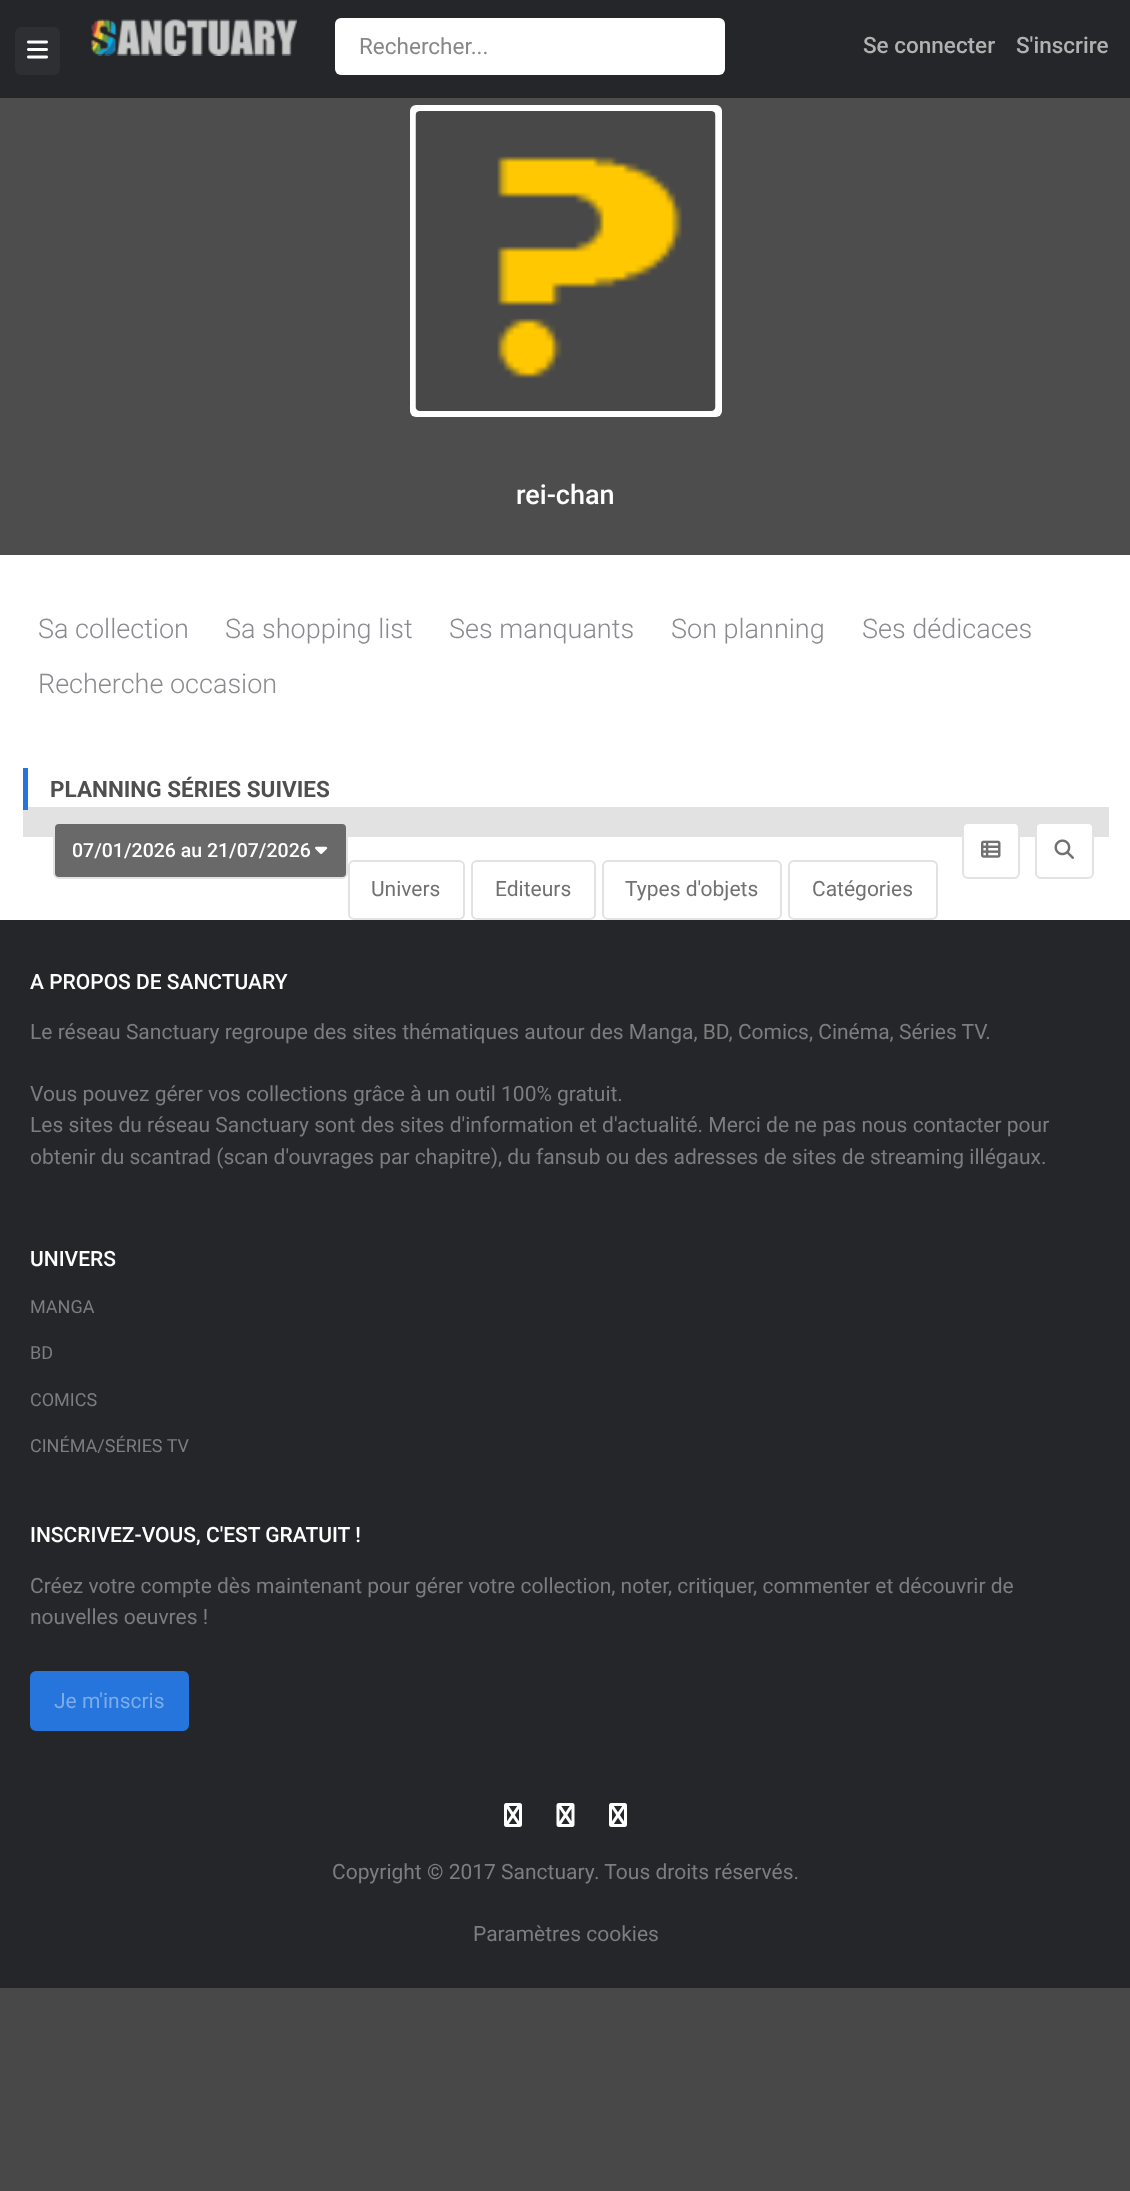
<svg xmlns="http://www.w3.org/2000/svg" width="1130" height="2191">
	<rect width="100%" height="100%" fill="#484848" />
	<rect x="0" y="0" width="1130" height="98" fill="#242629" />
	<rect x="15" y="27" width="45" height="48" rx="6" fill="#2D2F32" />
	<image x="27" y="40" width="21" height="19" href="assets/img1.png" />
	<image x="91" y="19" width="206" height="37" href="assets/img2.png" />
	<rect x="335" y="18" width="390" height="57" rx="6" fill="#FFFFFF" />
	<text x="359" y="54" font-family="Roboto" font-size="22.5" fill="#878787">Rechercher...</text>
	<g font-family="Roboto" font-size="22.5" font-weight="500" fill="#B1B1B1">
		<text x="863" y="53">Se connecter</text>
		<text x="1016" y="53">S'inscrire</text>
	</g>
	<rect x="0" y="555" width="1130" height="365" fill="#FFFFFF" />
	<rect x="0" y="98" width="1130" height="457" fill="#4D4D4D" />
	<rect x="410" y="105" width="312" height="312" rx="6" fill="#FFFFFF" />
	<image x="415" y="111" width="301" height="300" href="assets/img3.png" />
	<text x="516" y="504" font-family="Roboto" font-size="27" font-weight="500" fill="#FFFFFF">rei-chan</text>
	<g font-family="Roboto" font-size="27" font-weight="300" fill="#8B8B8F">
		<text x="38" y="638">Sa collection</text>
		<text x="225" y="638">Sa shopping list</text>
		<text x="449" y="638">Ses manquants</text>
		<text x="671" y="638">Son planning</text>
		<text x="862" y="638">Ses dédicaces</text>
		<text x="38" y="693">Recherche occasion</text>
	</g>
	<text x="50" y="797" font-family="Roboto" font-size="22.5" font-weight="700" fill="#4F4F4F">PLANNING SÉRIES SUIVIES</text>
	<rect x="23" y="807" width="1086" height="30" fill="#E2E2E2" />
	<rect x="23" y="768" width="5" height="42" fill="#2575DC" />
	<rect x="54" y="823" width="293" height="55" rx="5" fill="#696969" stroke="#E2E2E2" stroke-width="2" />
	<text x="72" y="857" font-family="Roboto" font-size="19.5" font-weight="500" fill="#FFFFFF">07/01/2026 au 21/07/2026</text>
	<image x="315" y="846" width="13" height="8" href="assets/img4.png" />
	<rect x="963" y="823" width="56" height="55" rx="5" fill="#FFFFFF" stroke="#E2E2E2" stroke-width="2" />
	<image x="981" y="840" width="20" height="18" href="assets/img5.png" />
	<rect x="1036" y="823" width="57" height="55" rx="5" fill="#FFFFFF" stroke="#E2E2E2" stroke-width="2" />
	<image x="1054" y="839" width="20" height="20" href="assets/img6.png" />
	<rect x="349" y="861" width="115" height="58" rx="5" fill="none" stroke="#E2E2E2" stroke-width="2" />
	<text x="371" y="896" font-family="Roboto" font-size="21" fill="#717171">Univers</text>
	<rect x="472" y="861" width="123" height="58" rx="5" fill="none" stroke="#E2E2E2" stroke-width="2" />
	<text x="495" y="896" font-family="Roboto" font-size="21" fill="#717171">Editeurs</text>
	<rect x="603" y="861" width="178" height="58" rx="5" fill="none" stroke="#E2E2E2" stroke-width="2" />
	<text x="625" y="896" font-family="Roboto" font-size="21" fill="#717171">Types d'objets</text>
	<rect x="789" y="861" width="148" height="58" rx="5" fill="none" stroke="#E2E2E2" stroke-width="2" />
	<text x="812" y="896" font-family="Roboto" font-size="21" fill="#717171">Catégories</text>
	<rect x="0" y="920" width="1130" height="1068" fill="#242629" />
	<text x="30" y="989" font-family="Roboto" font-size="21" font-weight="500" fill="#FFFFFF">A PROPOS DE SANCTUARY</text>
	<g font-family="Roboto" font-size="21" fill="#7C7D7F">
		<text x="30" y="1039">Le réseau Sanctuary regroupe des sites thématiques autour des Manga, BD, Comics, Cinéma, Séries TV.</text>
		<text x="30" y="1101">Vous pouvez gérer vos collections grâce à un outil 100% gratuit.</text>
		<text x="30" y="1132">Les sites du réseau Sanctuary sont des sites d'information et d'actualité. Merci de ne pas nous contacter pour</text>
		<text x="30" y="1164">obtenir du scantrad (scan d'ouvrages par chapitre), du fansub ou des adresses de sites de streaming illégaux.</text>
	</g>
	<text x="30" y="1266" font-family="Roboto" font-size="21" font-weight="500" fill="#FFFFFF">UNIVERS</text>
	<g font-family="Roboto" font-size="18" fill="#7C7D7F">
		<text x="30" y="1313">MANGA</text>
		<text x="30" y="1359">BD</text>
		<text x="30" y="1406">COMICS</text>
		<text x="30" y="1452">CINÉMA/SÉRIES TV</text>
	</g>
	<text x="30" y="1542" font-family="Roboto" font-size="21" font-weight="500" fill="#FFFFFF">INSCRIVEZ-VOUS, C'EST GRATUIT !</text>
	<g font-family="Roboto" font-size="21" fill="#7C7D7F">
		<text x="30" y="1593">Créez votre compte dès maintenant pour gérer votre collection, noter, critiquer, commenter et découvrir de</text>
		<text x="30" y="1624">nouvelles oeuvres !</text>
	</g>
	<rect x="31" y="1672" width="157" height="58" rx="5" fill="#2575DC" stroke="#2575DC" stroke-width="2" />
	<text x="54" y="1708" font-family="Roboto" font-size="21" fill="#7CACEA">Je m'inscris</text>
	<image x="504" y="1803" width="18" height="24" href="assets/img7.png" />
	<image x="556" y="1803" width="19" height="24" href="assets/img8.png" />
	<image x="609" y="1803" width="18" height="24" href="assets/img7.png" />
	<g font-family="Roboto" font-size="21" fill="#7C7D7F">
		<text x="332" y="1879">Copyright © 2017 Sanctuary</text>
		<text x="594" y="1879">. Tous droits réservés.</text>
		<text x="473" y="1941">Paramètres cookies</text>
	</g>
</svg>
